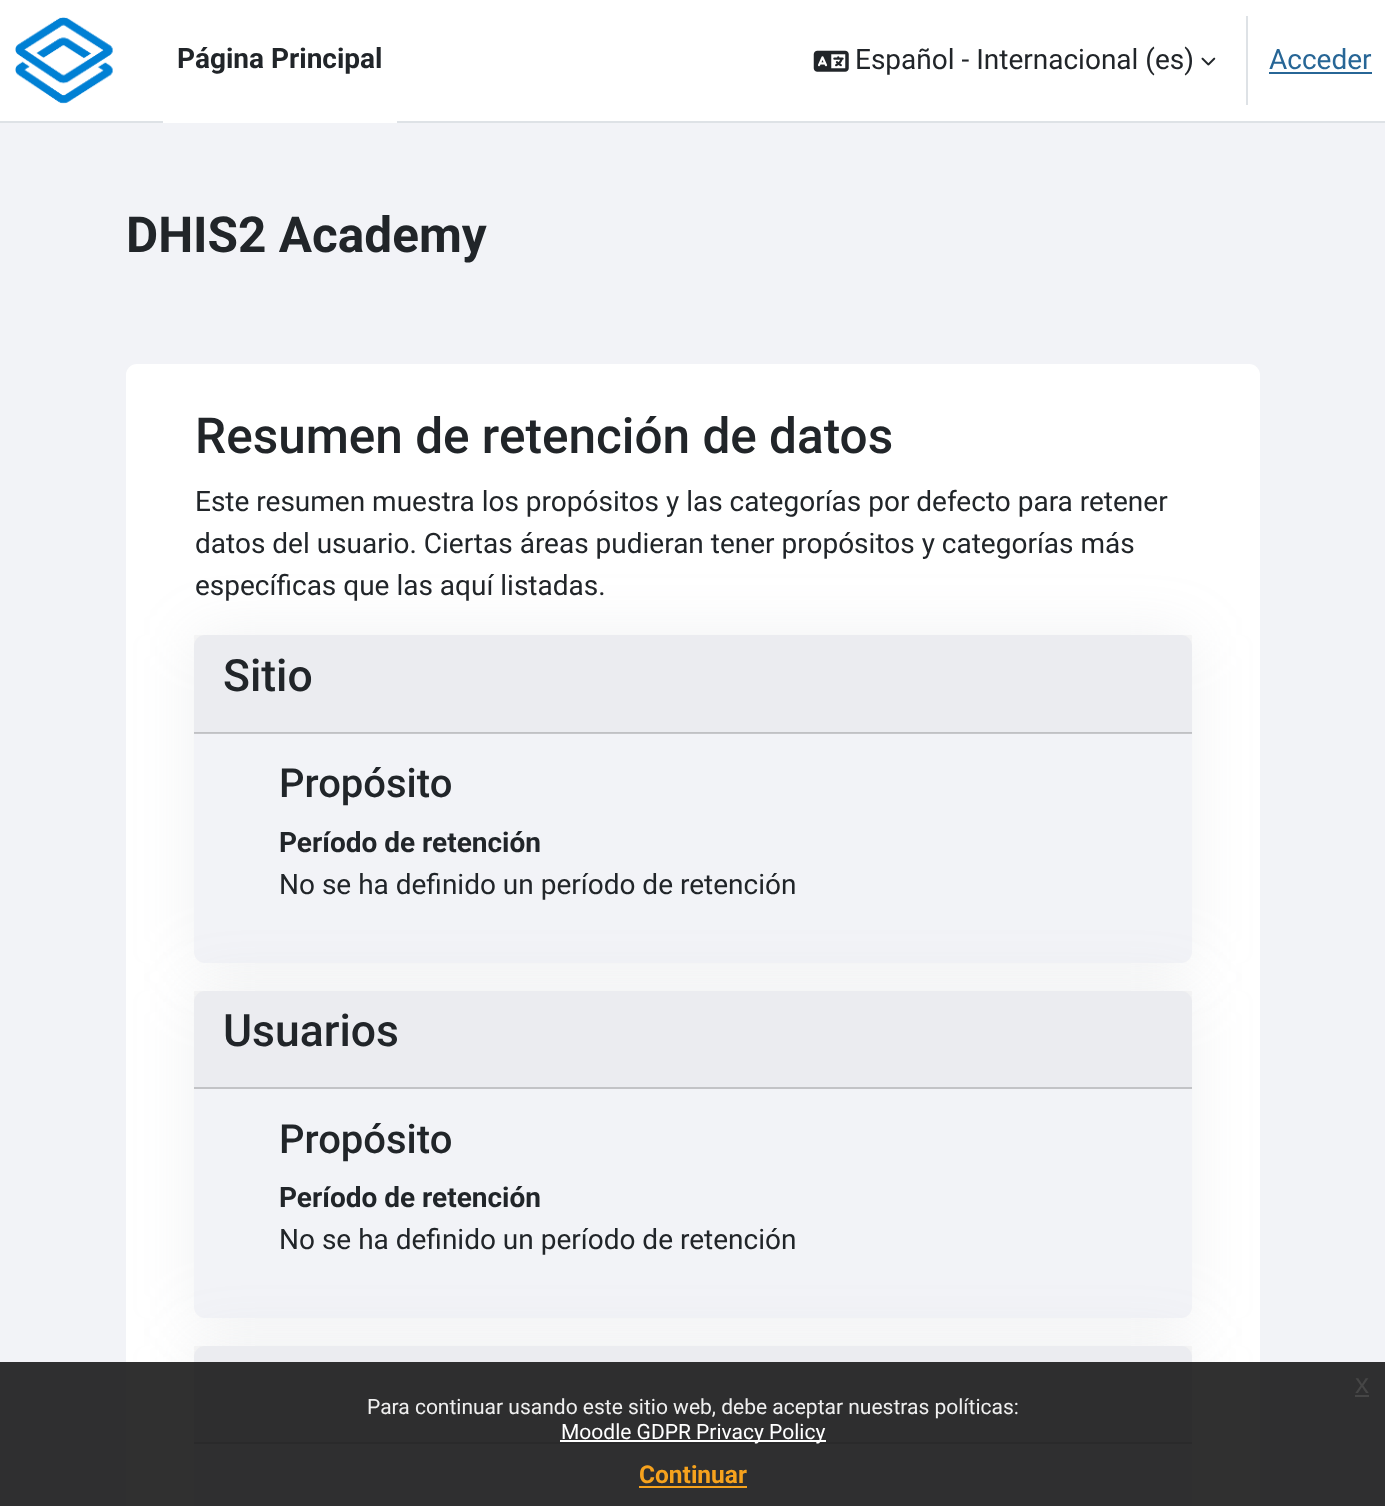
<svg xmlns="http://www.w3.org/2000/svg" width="1385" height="1506">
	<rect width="100%" height="100%" fill="#F2F3F7" />
	<rect x="0" y="0" width="1385" height="121" fill="#FFFFFF" />
	<rect x="0" y="121" width="1385" height="2" fill="#DEE2E6" />
	<image x="15" y="17" width="98" height="87" href="assets/img1.png" />
	<rect x="163" y="121" width="234" height="2" fill="#FFFFFF" />
	<text x="177" y="68" font-family="Roboto" font-size="28" font-weight="700" fill="#212529">Página Principal</text>
	<image x="813" y="50" width="36" height="22" href="assets/img2.png" />
	<text x="855" y="69" font-family="Roboto" font-size="28" fill="#212529">Español - Internacional (es)</text>
	<image x="1201" y="57" width="15" height="9" href="assets/img3.png" />
	<rect x="1246" y="16" width="2" height="89" fill="#DEE2E6" />
	<text x="1269" y="69" font-family="Roboto" font-size="28" fill="#276696">Acceder</text>
	<rect x="1269" y="72" width="103" height="2" fill="#276696" />
	<text x="126" y="252" font-family="Roboto" font-size="49.5" font-weight="700" fill="#212529">DHIS2 Academy</text>
	<rect x="126" y="364" width="1134" height="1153" rx="11" fill="#FFFFFF" />
	<text x="195" y="453" font-family="Roboto" font-size="49.5" font-weight="500" fill="#212529">Resumen de retención de datos</text>
	<g font-family="Roboto" font-size="28" fill="#212529">
		<text x="195" y="511">Este resumen muestra los propósitos y las categorías por defecto para retener</text>
		<text x="195" y="553">datos del usuario. Ciertas áreas pudieran tener propósitos y categorías más</text>
		<text x="195" y="595">específicas que las aquí listadas.</text>
	</g>
	<rect x="194" y="635" width="998" height="328" rx="11" fill="#9AA1AB" fill-opacity="0.15" filter="blur(30.5px)" />
	<rect x="194" y="635" width="998" height="328" rx="11" fill="#F2F3F7" />
	<rect x="194" y="635" width="998" height="98" fill="#212529" fill-opacity="0.03" />
	<rect x="194" y="732" width="998" height="2" fill="#000000" fill-opacity="0.18" />
	<text x="223" y="691" font-family="Roboto" font-size="44.5" font-weight="500" fill="#212529">Sitio</text>
	<text x="279" y="797" font-family="Roboto" font-size="40" font-weight="500" fill="#212529">Propósito</text>
	<text x="279" y="852" font-family="Roboto" font-size="28" font-weight="700" fill="#212529">Período de retención</text>
	<text x="279" y="894" font-family="Roboto" font-size="28" fill="#212529">No se ha definido un período de retención</text>
	<rect x="194" y="991" width="998" height="327" rx="11" fill="#9AA1AB" fill-opacity="0.15" filter="blur(30.5px)" />
	<rect x="194" y="991" width="998" height="327" rx="11" fill="#F2F3F7" />
	<rect x="194" y="991" width="998" height="96" fill="#212529" fill-opacity="0.03" />
	<rect x="194" y="1087" width="998" height="2" fill="#C2C3C6" />
	<text x="223" y="1046" font-family="Roboto" font-size="44.5" font-weight="500" fill="#212529">Usuarios</text>
	<text x="279" y="1153" font-family="Roboto" font-size="40" font-weight="500" fill="#212529">Propósito</text>
	<text x="279" y="1207" font-family="Roboto" font-size="28" font-weight="700" fill="#212529">Período de retención</text>
	<text x="279" y="1249" font-family="Roboto" font-size="28" fill="#212529">No se ha definido un período de retención</text>
	<rect x="194" y="1346" width="998" height="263" rx="11" fill="#9AA1AB" fill-opacity="0.15" filter="blur(30.5px)" />
	<rect x="194" y="1346" width="998" height="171" rx="11" fill="#F2F3F7" />
	<rect x="194" y="1346" width="998" height="96" fill="#212529" fill-opacity="0.03" />
	<rect x="194" y="1442" width="998" height="2" fill="#C2C3C6" />
	<rect x="0" y="1362" width="1385" height="144" fill="#191919" fill-opacity="0.9" />
	<text x="1355" y="1393" font-family="Liberation Sans" font-size="28" fill="#464646">x</text>
	<rect x="1355" y="1395" width="14" height="2" fill="#464646" />
	<text x="367" y="1414" font-family="Roboto" font-size="21" fill="#EFEFEF">Para continuar usando este sitio web, debe aceptar nuestras políticas:</text>
	<rect x="560" y="1440" width="266" height="2" fill="#FFFFFF" />
	<text x="561" y="1439" font-family="Roboto" font-size="21" fill="#FFFFFF">Moodle GDPR Privacy Policy</text>
	<text x="639" y="1483" font-family="Roboto" font-size="24.5" font-weight="700" fill="#F6A21D">Continuar</text>
	<rect x="639" y="1486" width="108" height="2" fill="#F6A21D" />
</svg>
